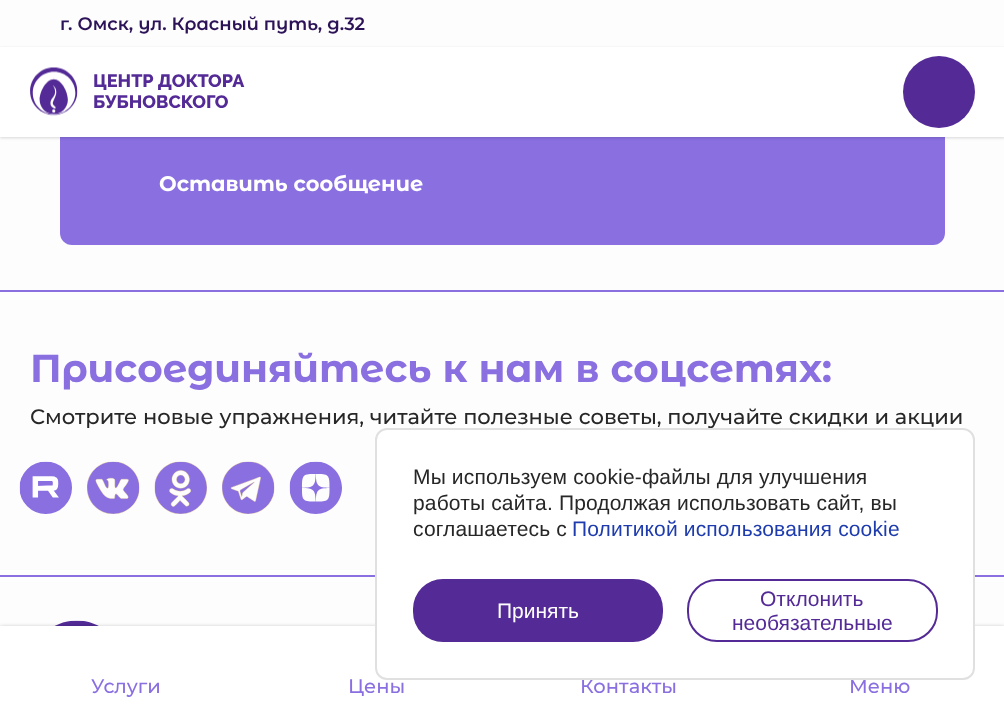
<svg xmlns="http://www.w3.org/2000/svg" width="1004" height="709">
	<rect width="100%" height="100%" fill="#FDFDFD" />
	<text x="60" y="30" font-family="Montserrat Alternates" font-size="18" font-weight="600" fill="#2C1257">г. Омск, ул. Красный путь, д.32</text>
	<rect x="60" y="123" width="885" height="122" rx="12" fill="#8A6FE1" />
	<rect x="0" y="48" width="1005" height="90" fill="#000000" fill-opacity="0.15" filter="blur(1.5px)" />
	<rect x="0" y="47" width="1004" height="90" fill="#FFFFFF" />
	<image x="30" y="67" width="48" height="49" href="assets/img1.png" />
	<g font-family="Raleway" font-size="18" font-weight="800" fill="#542B96">
		<text x="93" y="87">ЦЕНТР ДОКТОРА</text>
		<text x="93" y="108">БУБНОВСКОГО</text>
	</g>
	<circle cx="939" cy="92" r="36" fill="#542B96" />
	<text x="159" y="191" font-family="Montserrat Alternates" font-size="21" font-weight="700" fill="#FFFFFF">Оставить сообщение</text>
	<rect x="0" y="290" width="1004" height="2" fill="#8A6FE1" />
	<rect x="0" y="575" width="1004" height="2" fill="#8A6FE1" />
	<text x="30" y="382" font-family="Montserrat Alternates" font-size="39" font-weight="700" fill="#8A6FE1">Присоединяйтесь к нам в соцсетях:</text>
	<text x="30" y="424" font-family="Montserrat" font-size="21" font-weight="500" fill="#272727">Смотрите новые упражнения, читайте полезные советы, получайте скидки и акции</text>
	<image x="19" y="461" width="53" height="53" href="assets/img2.png" />
	<image x="87" y="461" width="53" height="53" href="assets/img3.png" />
	<image x="154" y="461" width="53" height="53" href="assets/img4.png" />
	<image x="222" y="461" width="53" height="53" href="assets/img5.png" />
	<image x="289" y="461" width="53" height="53" href="assets/img6.png" />
	<image x="54" y="620" width="45" height="6" href="assets/img7.png" />
	<rect x="0" y="627" width="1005" height="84" fill="#000000" fill-opacity="0.3" filter="blur(2px)" />
	<rect x="0" y="626" width="1004" height="83" fill="#FFFFFF" />
	<g font-family="Montserrat" font-size="19.5" font-weight="500" fill="#8A6FE1">
		<text x="348" y="693">Цены</text>
		<text x="580" y="693">Контакты</text>
		<text x="849" y="693">Меню</text>
	</g>
	<rect x="376" y="429" width="598" height="250" rx="11" fill="#FFFFFF" stroke="#E0E0E0" stroke-width="2" />
	<g font-family="Liberation Sans" font-size="21" letter-spacing="0.15" fill="#272727">
		<text x="413" y="484">Мы используем cookie-файлы для улучшения</text>
		<text x="413" y="510">работы сайта. Продолжая использовать сайт, вы</text>
		<text x="413" y="536">соглашаетесь с</text>
	</g>
	<text x="572" y="536" font-family="Liberation Sans" font-size="21" letter-spacing="0.15" fill="#1E3CAD">Политикой использования cookie</text>
	<rect x="413" y="579" width="250" height="63" rx="30" fill="#542B96" />
	<text x="497" y="618" font-family="Liberation Sans" font-size="21" fill="#FFFFFF">Принять</text>
	<rect x="688" y="580" width="249" height="61" rx="29" fill="none" stroke="#542B96" stroke-width="2" />
	<g font-family="Liberation Sans" font-size="21" fill="#542B96">
		<text x="760" y="606">Отклонить</text>
		<text x="732" y="630">необязательные</text>
	</g>
	<text x="91" y="693" font-family="Montserrat" font-size="19.5" font-weight="500" fill="#8A6FE1">Услуги</text>
</svg>
